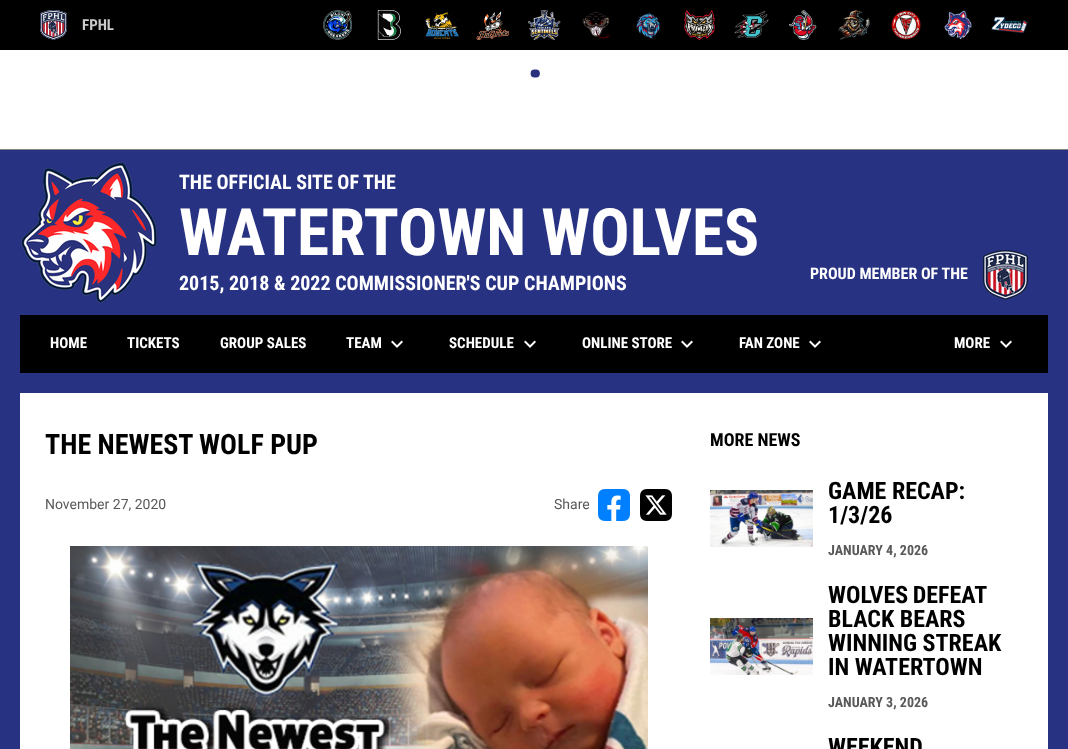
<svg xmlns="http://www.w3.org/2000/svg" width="1068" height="749">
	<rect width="100%" height="100%" fill="#283282" />
	<rect x="0" y="0" width="1068" height="50" fill="#000000" />
	<image x="40" y="10" width="27" height="30" href="assets/img1.png" />
	<text x="82" y="30" font-family="Roboto Condensed" font-size="15" font-weight="700" fill="#CACACA">FPHL</text>
	<image x="323" y="10" width="29" height="30" href="assets/img2.png" />
	<image x="377" y="10" width="24" height="30" href="assets/img3.png" />
	<image x="425" y="12" width="34" height="27" href="assets/img4.png" />
	<image x="476" y="11" width="34" height="29" href="assets/img5.png" />
	<image x="528" y="10" width="33" height="30" href="assets/img6.png" />
	<image x="582" y="11" width="29" height="28" href="assets/img7.png" />
	<image x="636" y="12" width="25" height="28" href="assets/img8.png" />
	<image x="684" y="10" width="31" height="30" href="assets/img9.png" />
	<image x="734" y="10" width="35" height="28" href="assets/img10.png" />
	<image x="789" y="10" width="28" height="30" href="assets/img11.png" />
	<image x="838" y="10" width="32" height="30" href="assets/img12.png" />
	<image x="891" y="10" width="30" height="30" href="assets/img13.png" />
	<image x="944" y="10" width="28" height="30" href="assets/img14.png" />
	<image x="991" y="16" width="37" height="18" href="assets/img15.png" />
	<rect x="0" y="50" width="1068" height="99" fill="#FFFFFF" />
	<rect x="0" y="149" width="1068" height="1" fill="#838383" />
	<path d="M534.5 73.5H536" fill="none" stroke="#2A327D" stroke-width="7.8" stroke-linecap="round" />
	<image x="21" y="162" width="136" height="141" href="assets/img16.png" />
	<text x="179" y="189" font-family="Roboto Condensed" font-size="20" font-weight="700" fill="#FFFFFF">THE OFFICIAL SITE OF THE</text>
	<text x="179" y="255" font-family="Roboto Condensed" font-size="65.25" font-weight="700" fill="#FFFFFF">WATERTOWN WOLVES</text>
	<text x="179" y="290" font-family="Roboto Condensed" font-size="20" font-weight="700" fill="#FFFFFF">2015, 2018 &amp; 2022 COMMISSIONER'S CUP CHAMPIONS</text>
	<text x="810" y="279" font-family="Roboto Condensed" font-size="16" font-weight="700" fill="#FFFFFF">PROUD MEMBER OF THE</text>
	<image x="983" y="250" width="45" height="50" href="assets/img17.png" />
	<rect x="20" y="315" width="1028" height="58" fill="#000000" />
	<g font-family="Roboto Condensed" font-size="15" font-weight="700" fill="#FFFFFF">
		<text x="50" y="348">HOME</text>
		<text x="127" y="348">TICKETS</text>
		<text x="220" y="348">GROUP SALES</text>
		<text x="346" y="348">TEAM</text>
	</g>
	<image x="391" y="340" width="12" height="8" href="assets/img18.png" />
	<text x="449" y="348" font-family="Roboto Condensed" font-size="15" font-weight="700" fill="#FFFFFF">SCHEDULE</text>
	<image x="524" y="340" width="12" height="8" href="assets/img18.png" />
	<text x="582" y="348" font-family="Roboto Condensed" font-size="15" font-weight="700" fill="#FFFFFF">ONLINE STORE</text>
	<image x="681" y="340" width="12" height="8" href="assets/img18.png" />
	<text x="739" y="348" font-family="Roboto Condensed" font-size="15" font-weight="700" fill="#FFFFFF">FAN ZONE</text>
	<image x="809" y="340" width="12" height="8" href="assets/img18.png" />
	<text x="954" y="348" font-family="Roboto Condensed" font-size="15" font-weight="700" fill="#FFFFFF">MORE</text>
	<image x="1000" y="340" width="12" height="8" href="assets/img18.png" />
	<rect x="20" y="393" width="1028" height="356" fill="#FFFFFF" />
	<text x="45" y="454" font-family="Roboto Condensed" font-size="28" font-weight="700" fill="#000000">THE NEWEST WOLF PUP</text>
	<g font-family="Roboto" font-size="14" fill="#595959">
		<text x="45" y="509">November 27, 2020</text>
		<text x="554" y="509">Share</text>
	</g>
	<image x="598" y="489" width="32" height="32" href="assets/img19.png" />
	<image x="640" y="489" width="32" height="32" href="assets/img20.png" />
	<image x="70" y="546" width="578" height="203" href="assets/img21.png" />
	<text x="710" y="446" font-family="Roboto Condensed" font-size="18" font-weight="700" fill="#000000">MORE NEWS</text>
	<image x="710" y="490" width="103" height="57" href="assets/img22.png" />
	<g font-family="Roboto Condensed" font-size="24" font-weight="700" fill="#000000">
		<text x="828" y="499">GAME RECAP:</text>
		<text x="828" y="523">1/3/26</text>
	</g>
	<text x="828" y="555" font-family="Roboto Condensed" font-size="14" font-weight="700" fill="#595959">JANUARY 4, 2026</text>
	<image x="710" y="618" width="103" height="57" href="assets/img23.png" />
	<g font-family="Roboto Condensed" font-size="24" font-weight="700" fill="#000000">
		<text x="828" y="603" word-spacing="-1">WOLVES DEFEAT</text>
		<text x="828" y="627">BLACK BEARS</text>
		<text x="828" y="651">WINNING STREAK</text>
		<text x="828" y="675">IN WATERTOWN</text>
	</g>
	<text x="828" y="707" font-family="Roboto Condensed" font-size="14" font-weight="700" fill="#595959">JANUARY 3, 2026</text>
	<text x="828" y="755" font-family="Roboto Condensed" font-size="24" font-weight="700" fill="#000000">WEEKEND</text>
</svg>
